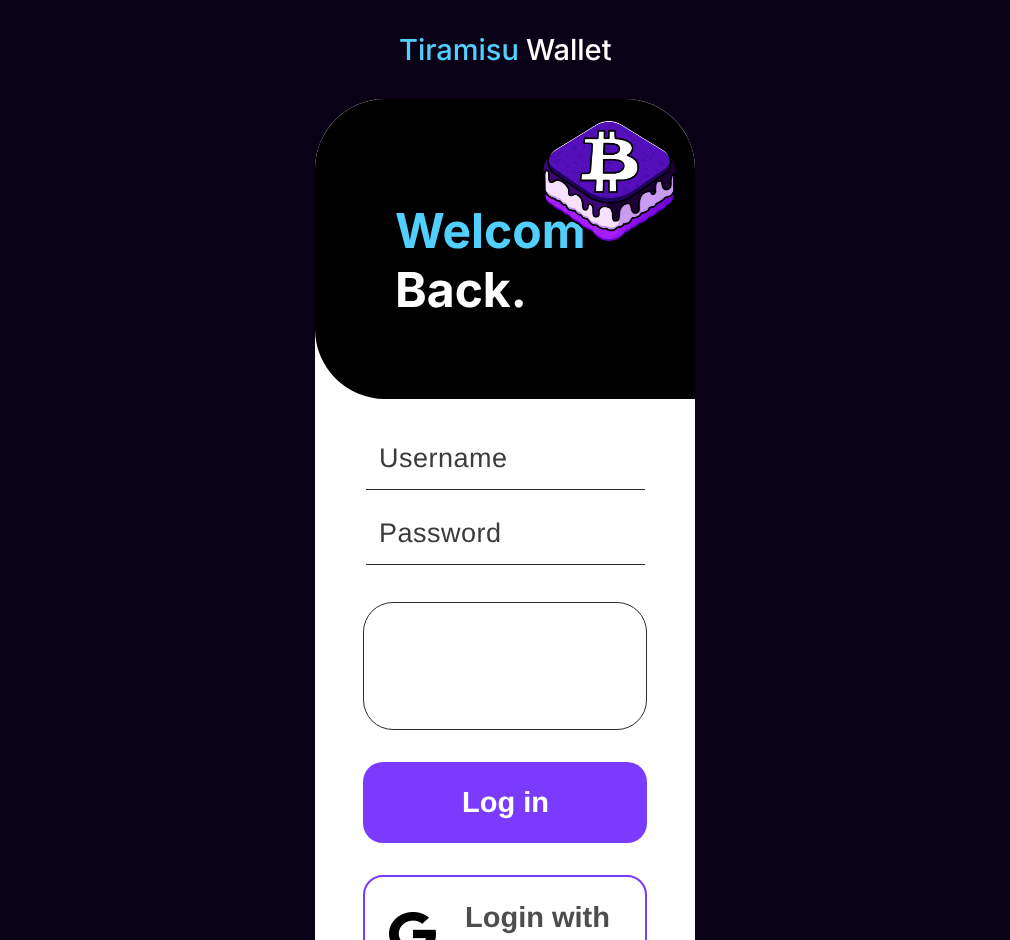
<svg xmlns="http://www.w3.org/2000/svg" width="1010" height="940">
	<rect width="100%" height="100%" fill="#090217" />
	<text x="399" y="60" font-family="Inter" font-size="29" font-weight="500" fill="#51D0FF">Tiramisu</text>
	<text x="526" y="60" font-family="Inter" font-size="29" font-weight="500" fill="#FFFFFF">Wallet</text>
	<rect x="315" y="99" width="380" height="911" rx="70" fill="#FFFFFF" />
	<path d="M385 99H625C663.5 99 695 130.5 695 169V399H385C346.5 399 315 367.5 315 329V169C315 130.5 346.5 99 385 99Z" fill="#000000" />
	<text x="395" y="248" font-family="Inter" font-size="48" font-weight="700" fill="#51D0FF">Welcom</text>
	<image x="543" y="120" width="133" height="123" href="assets/img1.png" />
	<text x="395" y="307" font-family="Inter" font-size="48" font-weight="700" fill="#FFFFFF">Back.</text>
	<rect x="366" y="489" width="279" height="1" fill="#2C2C2C" />
	<text x="379" y="467" font-family="Liberation Sans" font-size="27" letter-spacing="0.5" fill="#3B3B3B">Username</text>
	<rect x="366" y="564" width="279" height="1" fill="#2C2C2C" />
	<text x="379" y="542" font-family="Liberation Sans" font-size="27" letter-spacing="0.5" fill="#3B3B3B">Password</text>
	<rect x="363.5" y="602.5" width="283" height="127" rx="29.5" fill="none" stroke="#2C2C2C" />
	<rect x="363" y="762" width="284" height="81" rx="20" fill="#7A3BFF" />
	<text x="462" y="812" font-family="Liberation Sans" font-size="29" font-weight="700" fill="#FFFFFF">Log in</text>
	<rect x="364" y="876" width="282" height="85" rx="19" fill="none" stroke="#7A3BFF" stroke-width="2" />
	<image x="389" y="912" width="47" height="28" href="assets/img2.png" />
	<text x="465" y="927" font-family="Liberation Sans" font-size="29" font-weight="700" fill="#4D4D4D">Login with</text>
</svg>
